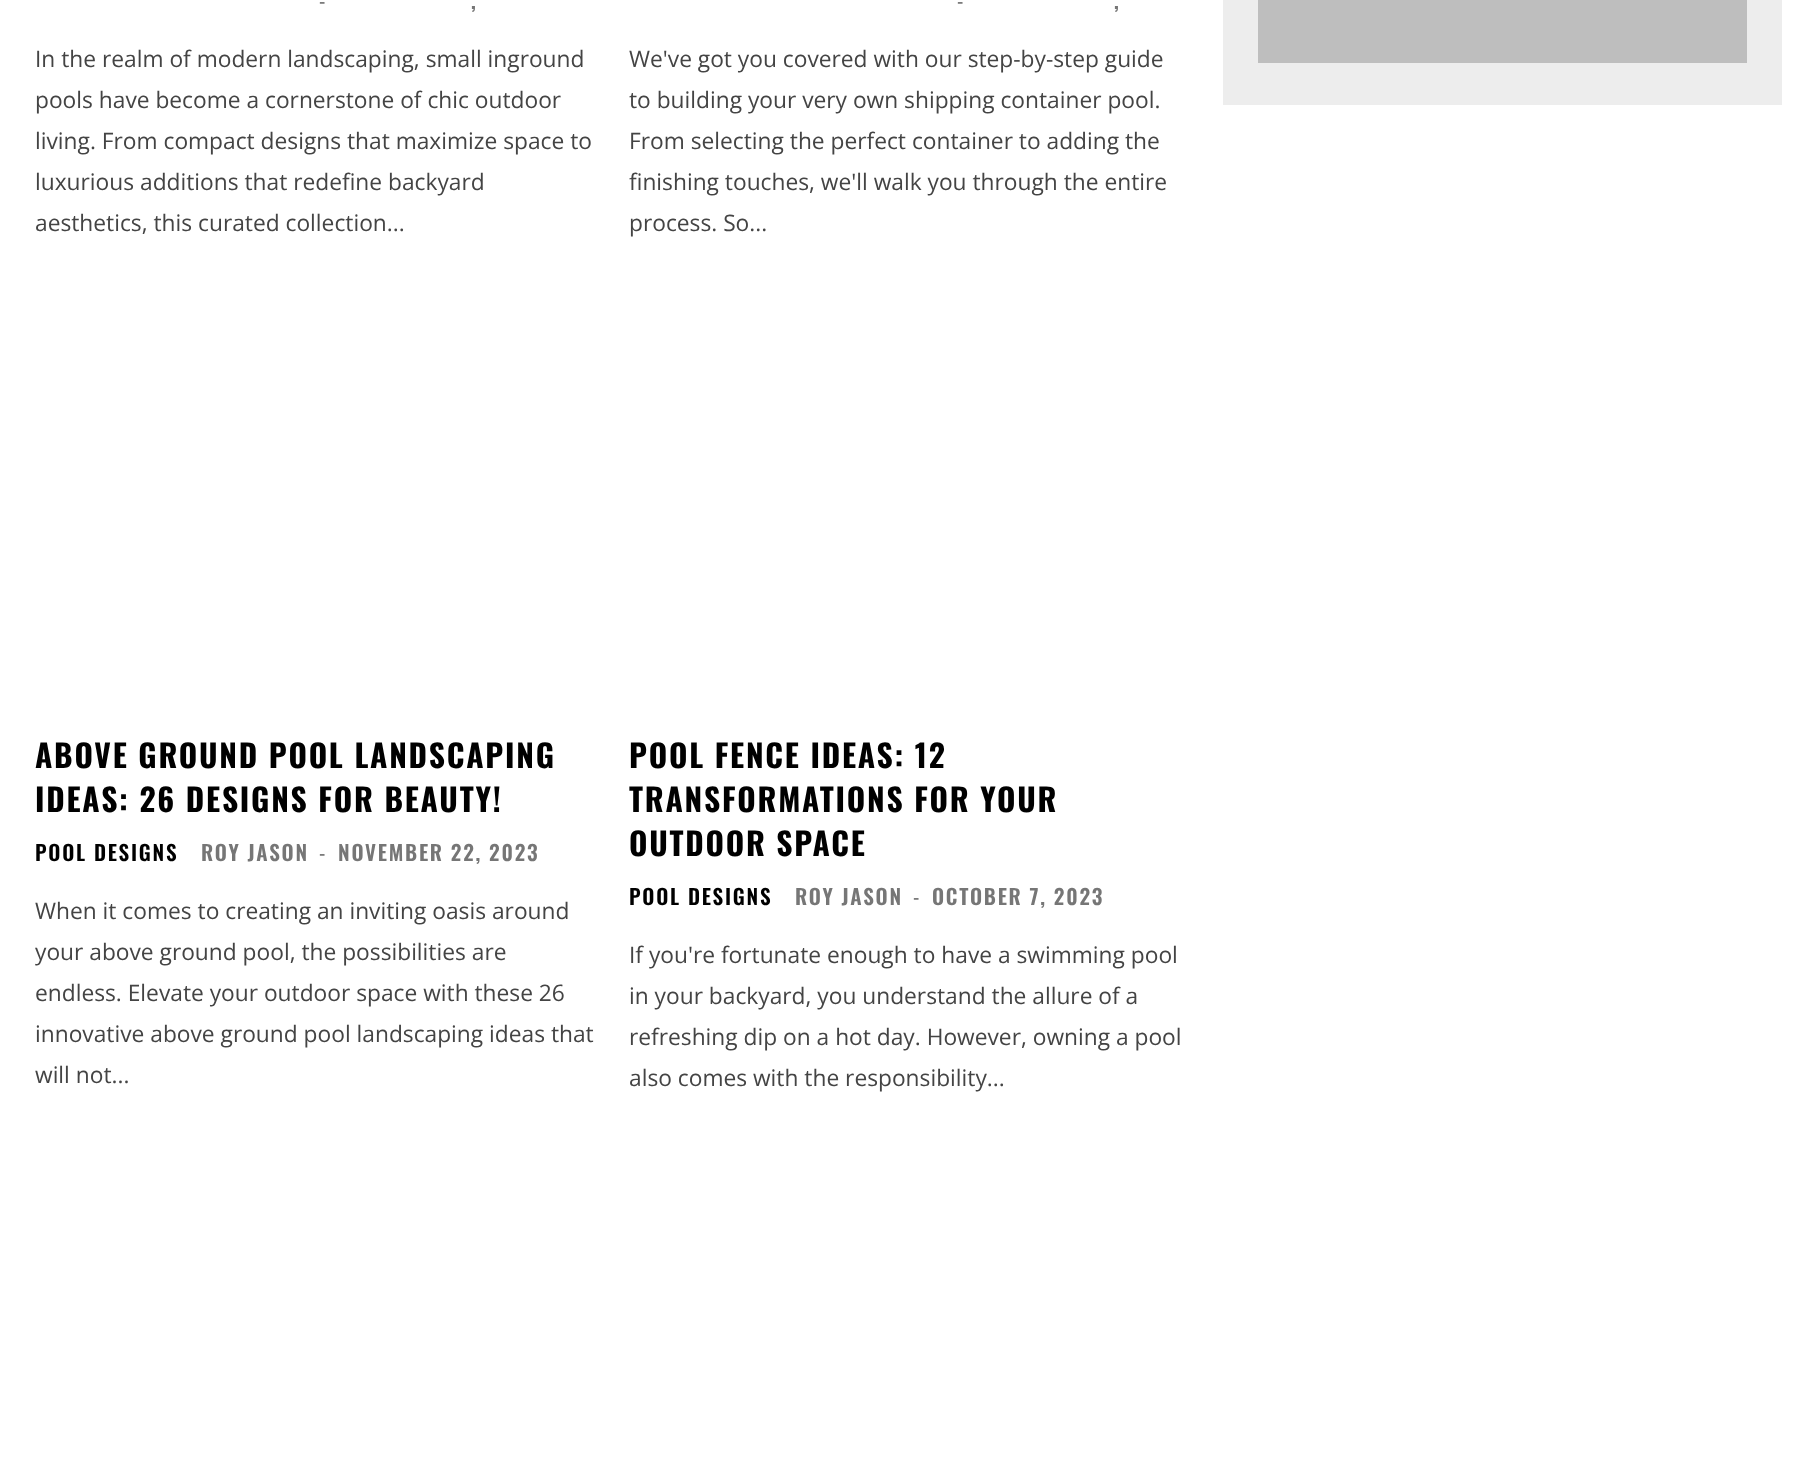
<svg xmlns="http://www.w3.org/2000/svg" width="1816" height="1474">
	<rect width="100%" height="100%" fill="#FFFFFF" />
	<text x="319" y="9" font-family="Oswald" font-size="21" letter-spacing="1.75" fill="#767676">-</text>
	<text x="471" y="9" font-family="Oswald" font-size="21" font-weight="600" letter-spacing="1.75" fill="#767676">,</text>
	<g font-family="Open Sans" font-size="22.75" fill="#444444">
		<text x="35" y="67">In the realm of modern landscaping, small inground</text>
		<text x="35" y="108">pools have become a cornerstone of chic outdoor</text>
		<text x="35" y="149">living. From compact designs that maximize space to</text>
		<text x="35" y="190">luxurious additions that redefine backyard</text>
		<text x="35" y="231">aesthetics, this curated collection...</text>
	</g>
	<text x="957" y="9" font-family="Oswald" font-size="21" letter-spacing="1.75" fill="#767676">-</text>
	<text x="1114" y="9" font-family="Oswald" font-size="21" font-weight="600" letter-spacing="1.75" fill="#767676">,</text>
	<g font-family="Open Sans" font-size="22.75" fill="#444444">
		<text x="629" y="67">We've got you covered with our step-by-step guide</text>
		<text x="629" y="108">to building your very own shipping container pool.</text>
		<text x="629" y="149">From selecting the perfect container to adding the</text>
		<text x="629" y="190">finishing touches, we'll walk you through the entire</text>
		<text x="629" y="231">process. So...</text>
	</g>
	<g font-family="Oswald" font-size="31.5" font-weight="700" letter-spacing="1.75" fill="#000000">
		<text x="35" y="768">ABOVE GROUND POOL LANDSCAPING</text>
		<text x="35" y="812">IDEAS: 26 DESIGNS FOR BEAUTY!</text>
	</g>
	<text x="35" y="861" font-family="Oswald" font-size="21" font-weight="600" letter-spacing="1.75" fill="#000000">POOL DESIGNS</text>
	<text x="201" y="861" font-family="Oswald" font-size="21" font-weight="600" letter-spacing="1.75" fill="#767676">ROY JASON</text>
	<text x="319" y="861" font-family="Oswald" font-size="21" letter-spacing="1.75" fill="#767676">-</text>
	<text x="338" y="861" font-family="Oswald" font-size="21" font-weight="600" letter-spacing="1.75" fill="#767676">NOVEMBER 22, 2023</text>
	<g font-family="Open Sans" font-size="22.75" fill="#444444">
		<text x="35" y="919">When it comes to creating an inviting oasis around</text>
		<text x="35" y="960">your above ground pool, the possibilities are</text>
		<text x="35" y="1001">endless. Elevate your outdoor space with these 26</text>
		<text x="35" y="1042">innovative above ground pool landscaping ideas that</text>
		<text x="35" y="1083">will not...</text>
	</g>
	<g font-family="Oswald" font-size="31.5" font-weight="700" letter-spacing="1.75" fill="#000000">
		<text x="629" y="768">POOL FENCE IDEAS: 12</text>
		<text x="629" y="812">TRANSFORMATIONS FOR YOUR</text>
		<text x="629" y="856">OUTDOOR SPACE</text>
	</g>
	<text x="629" y="905" font-family="Oswald" font-size="21" font-weight="600" letter-spacing="1.75" fill="#000000">POOL DESIGNS</text>
	<text x="795" y="905" font-family="Oswald" font-size="21" font-weight="600" letter-spacing="1.75" fill="#767676">ROY JASON</text>
	<text x="913" y="905" font-family="Oswald" font-size="21" letter-spacing="1.75" fill="#767676">-</text>
	<text x="932" y="905" font-family="Oswald" font-size="21" font-weight="600" letter-spacing="1.75" fill="#767676">OCTOBER 7, 2023</text>
	<g font-family="Open Sans" font-size="22.75" fill="#444444">
		<text x="629" y="963">If you're fortunate enough to have a swimming pool</text>
		<text x="629" y="1004">in your backyard, you understand the allure of a</text>
		<text x="629" y="1045">refreshing dip on a hot day. However, owning a pool</text>
		<text x="629" y="1086">also comes with the responsibility...</text>
	</g>
	<rect x="1223" y="0" width="559" height="105" fill="#EDEDED" />
	<rect x="1258" y="0" width="489" height="63" fill="#BEBEBE" />
</svg>
